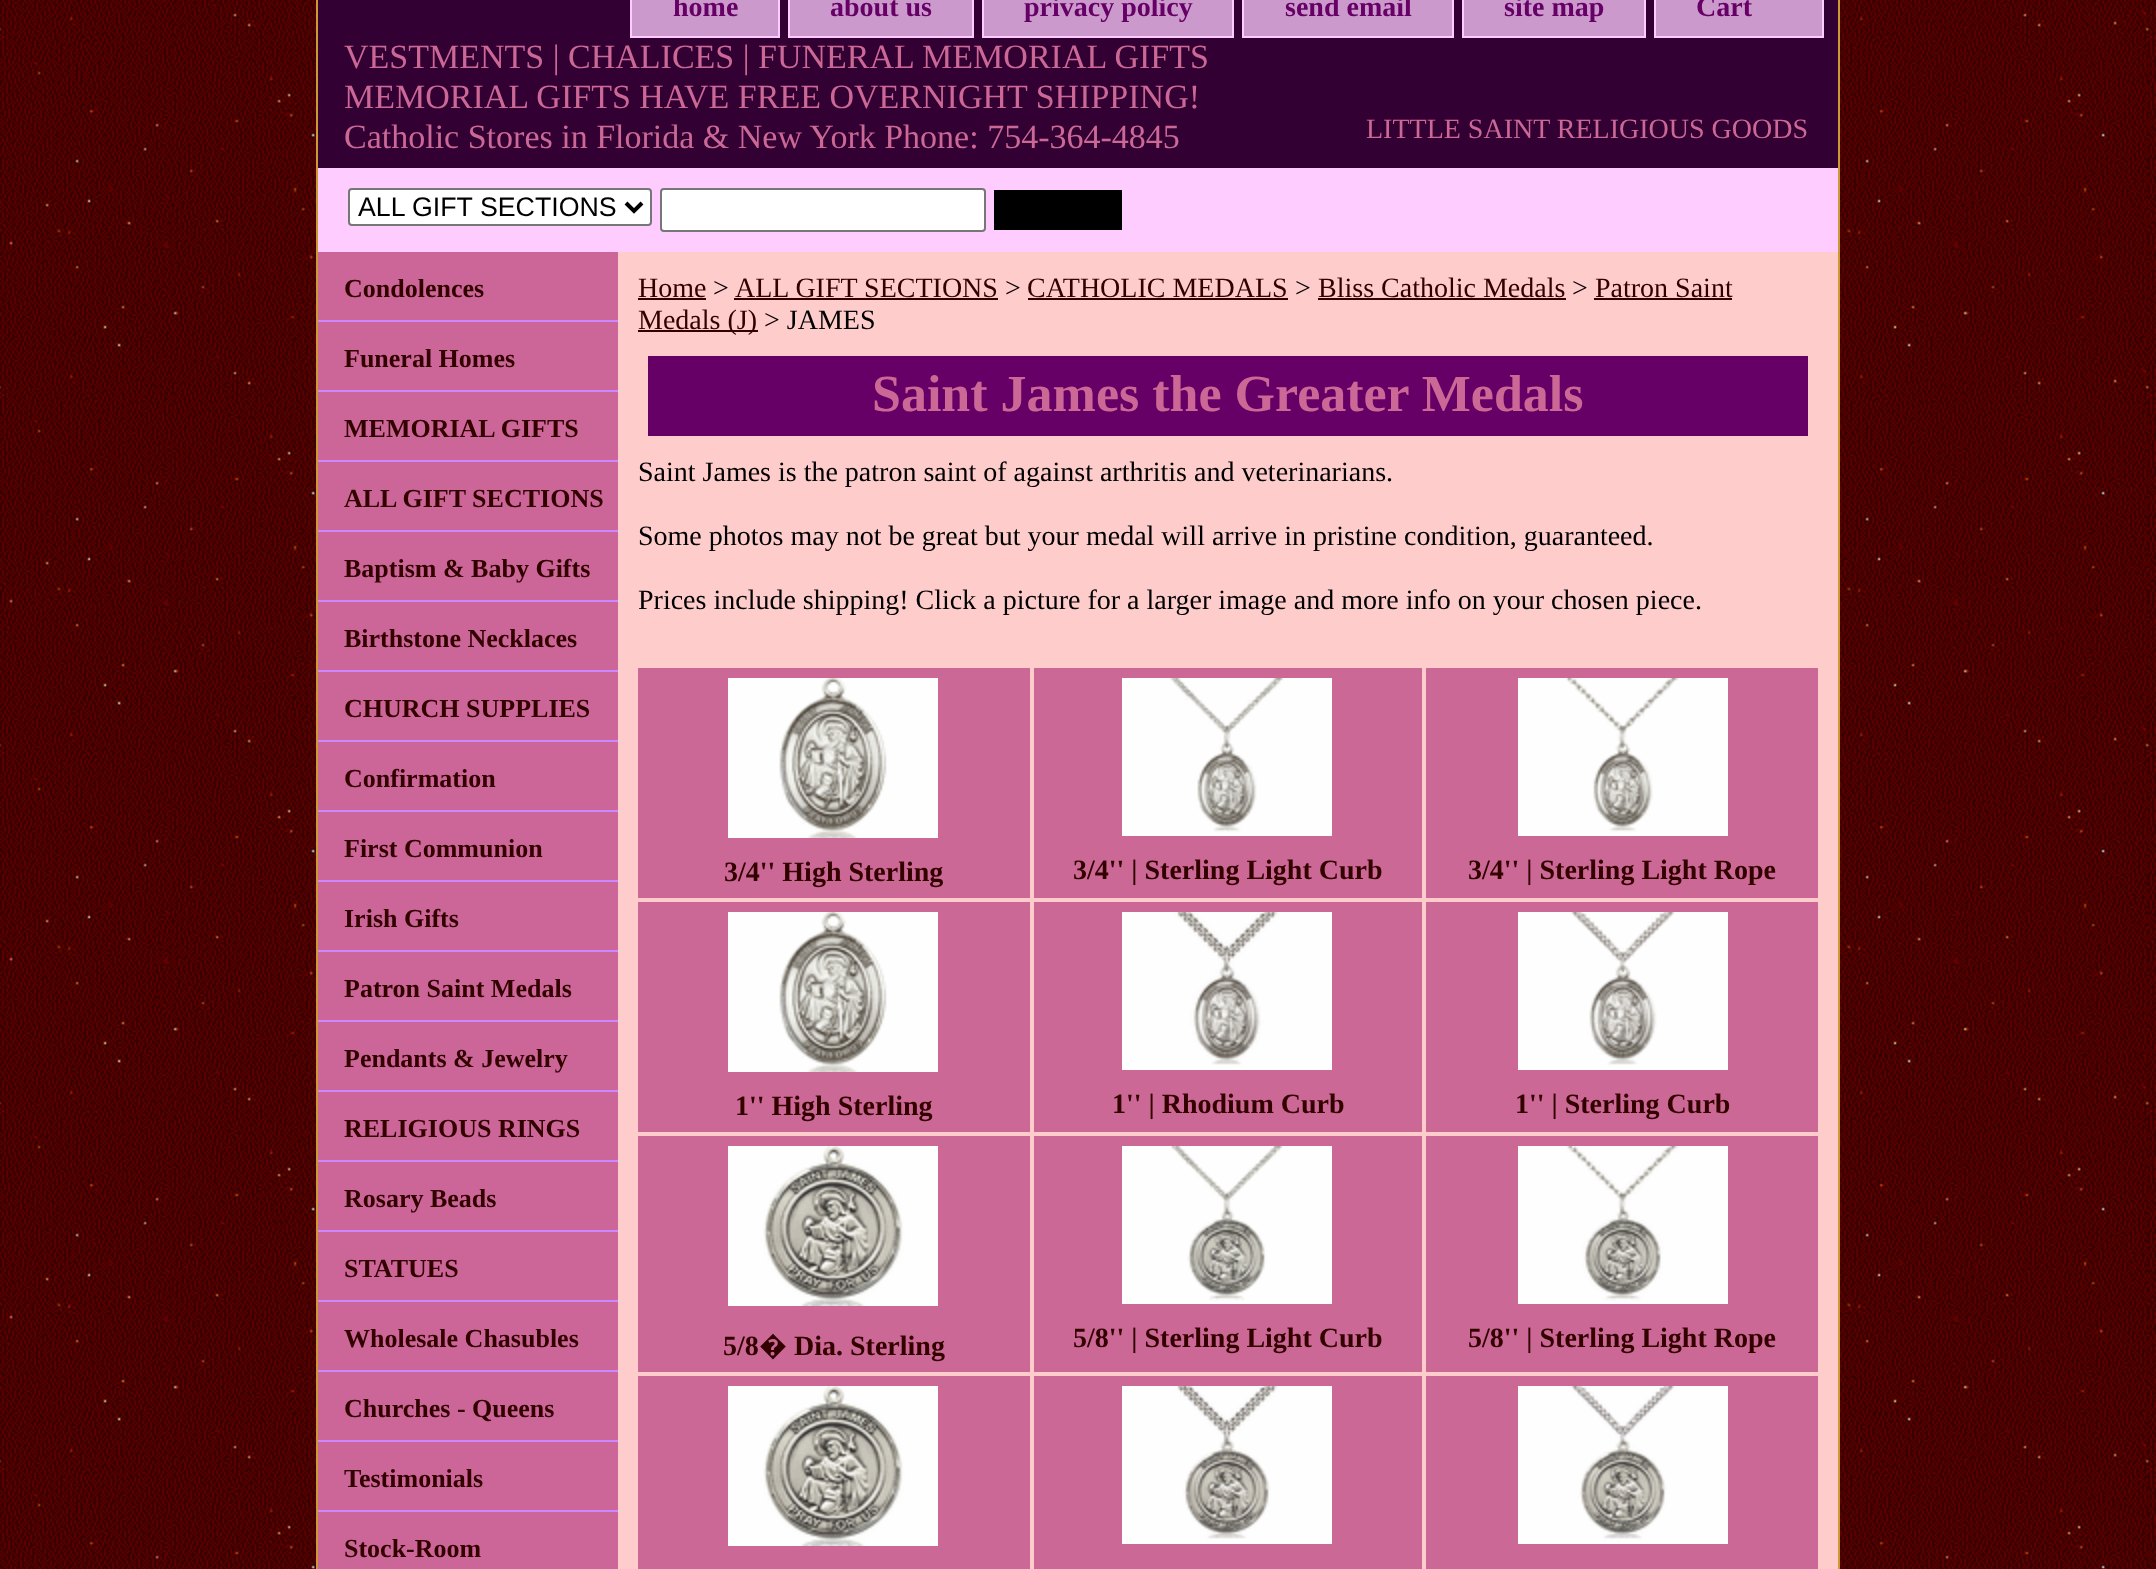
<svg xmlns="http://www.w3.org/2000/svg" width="2156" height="1569">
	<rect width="100%" height="100%" fill="#FFFFFF" />
	<image x="0" y="0" width="2156" height="1569" href="assets/img1.png" />
	<rect x="618" y="252" width="1220" height="416" fill="#FFCCCC" />
	<rect x="317" y="-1" width="1522" height="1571" fill="none" stroke="#CC9933" stroke-width="2" />
	<rect x="318" y="0" width="1520" height="168" fill="#330033" />
	<rect x="632" y="0" width="146" height="36" fill="#CC99CC" />
	<rect x="778" y="0" width="2" height="38" fill="#FFCCFF" />
	<rect x="630" y="36" width="150" height="2" fill="#FFCCFF" />
	<rect x="630" y="0" width="2" height="38" fill="#FFCCFF" />
	<text x="673" y="16" font-family="Liberation Serif" font-size="28" font-weight="700" fill="#660066">home</text>
	<rect x="790" y="0" width="182" height="36" fill="#CC99CC" />
	<rect x="972" y="0" width="2" height="38" fill="#FFCCFF" />
	<rect x="788" y="36" width="186" height="2" fill="#FFCCFF" />
	<rect x="788" y="0" width="2" height="38" fill="#FFCCFF" />
	<text x="830" y="16" font-family="Liberation Serif" font-size="28" font-weight="700" fill="#660066">about us</text>
	<rect x="984" y="0" width="248" height="36" fill="#CC99CC" />
	<rect x="1232" y="0" width="2" height="38" fill="#FFCCFF" />
	<rect x="982" y="36" width="252" height="2" fill="#FFCCFF" />
	<rect x="982" y="0" width="2" height="38" fill="#FFCCFF" />
	<text x="1024" y="16" font-family="Liberation Serif" font-size="28" font-weight="700" fill="#660066">privacy policy</text>
	<rect x="1244" y="0" width="208" height="36" fill="#CC99CC" />
	<rect x="1452" y="0" width="2" height="38" fill="#FFCCFF" />
	<rect x="1242" y="36" width="212" height="2" fill="#FFCCFF" />
	<rect x="1242" y="0" width="2" height="38" fill="#FFCCFF" />
	<text x="1285" y="16" font-family="Liberation Serif" font-size="28" font-weight="700" fill="#660066">send email</text>
	<rect x="1464" y="0" width="180" height="36" fill="#CC99CC" />
	<rect x="1644" y="0" width="2" height="38" fill="#FFCCFF" />
	<rect x="1462" y="36" width="184" height="2" fill="#FFCCFF" />
	<rect x="1462" y="0" width="2" height="38" fill="#FFCCFF" />
	<text x="1504" y="16" font-family="Liberation Serif" font-size="28" font-weight="700" fill="#660066">site map</text>
	<rect x="1656" y="0" width="166" height="36" fill="#CC99CC" />
	<rect x="1822" y="0" width="2" height="38" fill="#FFCCFF" />
	<rect x="1654" y="36" width="170" height="2" fill="#FFCCFF" />
	<rect x="1654" y="0" width="2" height="38" fill="#FFCCFF" />
	<text x="1696" y="16" font-family="Liberation Serif" font-size="28" font-weight="700" fill="#660066">Cart</text>
	<g font-family="Liberation Serif" font-size="34" fill="#CC6896">
		<text x="344" y="68">VESTMENTS | CHALICES | FUNERAL MEMORIAL GIFTS</text>
		<text x="344" y="108">MEMORIAL GIFTS HAVE FREE OVERNIGHT SHIPPING!</text>
		<text x="344" y="148">Catholic Stores in Florida &amp; New York Phone: 754-364-4845</text>
	</g>
	<text x="1366" y="138" font-family="Liberation Serif" font-size="28" fill="#CC6896">LITTLE SAINT RELIGIOUS GOODS</text>
	<rect x="318" y="168" width="1520" height="84" fill="#FFCCFF" />
	<rect x="349" y="189" width="302" height="36" rx="3" fill="#FFFFFF" stroke="#767676" stroke-width="2" />
	<path d="M626 203L634 211L642 203" fill="none" stroke="#000000" stroke-width="4" />
	<text x="358" y="216" font-family="Liberation Sans" font-size="26.75" fill="#000000">ALL GIFT SECTIONS</text>
	<rect x="661" y="189" width="324" height="42" rx="3" fill="#FFFFFF" stroke="#767676" stroke-width="2" />
	<rect x="994" y="190" width="128" height="40" fill="#000000" />
	<rect x="318" y="252" width="300" height="1317" fill="#CC6699" />
	<rect x="318" y="320" width="300" height="2" fill="#CC89FF" />
	<text x="344" y="297" font-family="Liberation Serif" font-size="26" font-weight="700" fill="#330000">Condolences</text>
	<rect x="318" y="390" width="300" height="2" fill="#CC89FF" />
	<text x="344" y="367" font-family="Liberation Serif" font-size="26" font-weight="700" fill="#330000">Funeral Homes</text>
	<rect x="318" y="460" width="300" height="2" fill="#CC89FF" />
	<text x="344" y="437" font-family="Liberation Serif" font-size="26" font-weight="700" fill="#330000">MEMORIAL GIFTS</text>
	<rect x="318" y="530" width="300" height="2" fill="#CC89FF" />
	<text x="344" y="507" font-family="Liberation Serif" font-size="26" font-weight="700" fill="#330000">ALL GIFT SECTIONS</text>
	<rect x="318" y="600" width="300" height="2" fill="#CC89FF" />
	<text x="344" y="577" font-family="Liberation Serif" font-size="26" font-weight="700" fill="#330000">Baptism &amp; Baby Gifts</text>
	<rect x="318" y="670" width="300" height="2" fill="#CC89FF" />
	<text x="344" y="647" font-family="Liberation Serif" font-size="26" font-weight="700" fill="#330000">Birthstone Necklaces</text>
	<rect x="318" y="740" width="300" height="2" fill="#CC89FF" />
	<text x="344" y="717" font-family="Liberation Serif" font-size="26" font-weight="700" fill="#330000">CHURCH SUPPLIES</text>
	<rect x="318" y="810" width="300" height="2" fill="#CC89FF" />
	<text x="344" y="787" font-family="Liberation Serif" font-size="26" font-weight="700" fill="#330000">Confirmation</text>
	<rect x="318" y="880" width="300" height="2" fill="#CC89FF" />
	<text x="344" y="857" font-family="Liberation Serif" font-size="26" font-weight="700" fill="#330000">First Communion</text>
	<rect x="318" y="950" width="300" height="2" fill="#CC89FF" />
	<text x="344" y="927" font-family="Liberation Serif" font-size="26" font-weight="700" fill="#330000">Irish Gifts</text>
	<rect x="318" y="1020" width="300" height="2" fill="#CC89FF" />
	<text x="344" y="997" font-family="Liberation Serif" font-size="26" font-weight="700" fill="#330000">Patron Saint Medals</text>
	<rect x="318" y="1090" width="300" height="2" fill="#CC89FF" />
	<text x="344" y="1067" font-family="Liberation Serif" font-size="26" font-weight="700" fill="#330000">Pendants &amp; Jewelry</text>
	<rect x="318" y="1160" width="300" height="2" fill="#CC89FF" />
	<text x="344" y="1137" font-family="Liberation Serif" font-size="26" font-weight="700" fill="#330000">RELIGIOUS RINGS</text>
	<rect x="318" y="1230" width="300" height="2" fill="#CC89FF" />
	<text x="344" y="1207" font-family="Liberation Serif" font-size="26" font-weight="700" fill="#330000">Rosary Beads</text>
	<rect x="318" y="1300" width="300" height="2" fill="#CC89FF" />
	<text x="344" y="1277" font-family="Liberation Serif" font-size="26" font-weight="700" fill="#330000">STATUES</text>
	<rect x="318" y="1370" width="300" height="2" fill="#CC89FF" />
	<text x="344" y="1347" font-family="Liberation Serif" font-size="26" font-weight="700" fill="#330000">Wholesale Chasubles</text>
	<rect x="318" y="1440" width="300" height="2" fill="#CC89FF" />
	<text x="344" y="1417" font-family="Liberation Serif" font-size="26" font-weight="700" fill="#330000">Churches - Queens</text>
	<rect x="318" y="1510" width="300" height="2" fill="#CC89FF" />
	<g font-family="Liberation Serif" font-size="26" font-weight="700" fill="#330000">
		<text x="344" y="1487">Testimonials</text>
		<text x="344" y="1557">Stock-Room</text>
	</g>
	<text x="638" y="297" font-family="Liberation Serif" font-size="28" fill="#330000">Home</text>
	<rect x="638" y="298" width="68" height="2" fill="#330000" />
	<text x="713" y="297" font-family="Liberation Serif" font-size="28" fill="#000000">&gt;</text>
	<text x="735" y="297" font-family="Liberation Serif" font-size="28" fill="#330000">ALL GIFT SECTIONS</text>
	<rect x="734" y="298" width="264" height="2" fill="#330000" />
	<text x="1005" y="297" font-family="Liberation Serif" font-size="28" fill="#000000">&gt;</text>
	<text x="1027" y="297" font-family="Liberation Serif" font-size="28" fill="#330000">CATHOLIC MEDALS</text>
	<rect x="1028" y="298" width="260" height="2" fill="#330000" />
	<text x="1295" y="297" font-family="Liberation Serif" font-size="28" fill="#000000">&gt;</text>
	<text x="1318" y="297" font-family="Liberation Serif" font-size="28" fill="#330000">Bliss Catholic Medals</text>
	<rect x="1318" y="298" width="248" height="2" fill="#330000" />
	<text x="1572" y="297" font-family="Liberation Serif" font-size="28" fill="#000000">&gt;</text>
	<text x="1595" y="297" font-family="Liberation Serif" font-size="28" fill="#330000">Patron Saint</text>
	<rect x="1594" y="298" width="138" height="2" fill="#330000" />
	<rect x="638" y="330" width="120" height="2" fill="#330000" />
	<text x="638" y="329" font-family="Liberation Serif" font-size="28" fill="#330000">Medals (J)</text>
	<text x="764" y="329" font-family="Liberation Serif" font-size="28" fill="#000000">&gt; JAMES</text>
	<rect x="648" y="356" width="1160" height="80" fill="#660066" />
	<text x="872" y="411" font-family="Liberation Serif" font-size="52" font-weight="700" fill="#CC6896">Saint James the Greater Medals</text>
	<g font-family="Liberation Serif" font-size="28" fill="#000000">
		<text x="638" y="481">Saint James is the patron saint of against arthritis and veterinarians.</text>
		<text x="638" y="545">Some photos may not be great but your medal will arrive in pristine condition, guaranteed.</text>
		<text x="638" y="609">Prices include shipping! Click a picture for a larger image and more info on your chosen piece.</text>
	</g>
	<rect x="638" y="668" width="1180" height="901" fill="#CC6896" />
	<rect x="1818" y="668" width="20" height="901" fill="#FFCCCC" />
	<rect x="618" y="668" width="20" height="901" fill="#FFCCCC" />
	<rect x="1422" y="1372" width="4" height="197" fill="#FFCCCC" />
	<rect x="1422" y="1372" width="398" height="4" fill="#FFCCCC" />
	<rect x="1422" y="1132" width="4" height="244" fill="#FFCCCC" />
	<rect x="1422" y="1132" width="398" height="4" fill="#FFCCCC" />
	<rect x="1422" y="898" width="4" height="238" fill="#FFCCCC" />
	<rect x="1422" y="898" width="398" height="4" fill="#FFCCCC" />
	<rect x="1422" y="666" width="4" height="236" fill="#FFCCCC" />
	<rect x="1030" y="1372" width="4" height="197" fill="#FFCCCC" />
	<rect x="1030" y="1372" width="396" height="4" fill="#FFCCCC" />
	<rect x="1030" y="1132" width="4" height="244" fill="#FFCCCC" />
	<rect x="1030" y="1132" width="396" height="4" fill="#FFCCCC" />
	<rect x="1030" y="898" width="4" height="238" fill="#FFCCCC" />
	<rect x="1030" y="898" width="396" height="4" fill="#FFCCCC" />
	<rect x="1030" y="666" width="4" height="236" fill="#FFCCCC" />
	<rect x="636" y="898" width="398" height="4" fill="#FFCCCC" />
	<image x="728" y="678" width="210" height="160" href="assets/img2.png" />
	<text x="724" y="881" font-family="Liberation Serif" font-size="28" font-weight="700" fill="#330000">3/4'' High Sterling</text>
	<image x="1122" y="678" width="210" height="158" href="assets/img3.png" />
	<text x="1073" y="879" font-family="Liberation Serif" font-size="28" font-weight="700" fill="#330000">3/4'' | Sterling Light Curb</text>
	<image x="1518" y="678" width="210" height="158" href="assets/img4.png" />
	<text x="1468" y="879" font-family="Liberation Serif" font-size="28" font-weight="700" fill="#330000">3/4'' | Sterling Light Rope</text>
	<rect x="636" y="1132" width="398" height="4" fill="#FFCCCC" />
	<image x="728" y="912" width="210" height="160" href="assets/img2.png" />
	<text x="735" y="1115" font-family="Liberation Serif" font-size="28" font-weight="700" fill="#330000">1'' High Sterling</text>
	<image x="1122" y="912" width="210" height="158" href="assets/img5.png" />
	<text x="1112" y="1113" font-family="Liberation Serif" font-size="28" font-weight="700" fill="#330000">1'' | Rhodium Curb</text>
	<image x="1518" y="912" width="210" height="158" href="assets/img6.png" />
	<text x="1515" y="1113" font-family="Liberation Serif" font-size="28" font-weight="700" fill="#330000">1'' | Sterling Curb</text>
	<rect x="636" y="1372" width="398" height="4" fill="#FFCCCC" />
	<image x="728" y="1146" width="210" height="160" href="assets/img7.png" />
	<text x="723" y="1355" font-family="Liberation Serif" font-size="28" font-weight="700" fill="#330000">5/8</text>
	<text x="759" y="1355" font-family="Noto Sans" font-size="28" font-weight="700" fill="#330000">�</text>
	<text x="794" y="1355" font-family="Liberation Serif" font-size="28" font-weight="700" fill="#330000">Dia. Sterling</text>
	<image x="1122" y="1146" width="210" height="158" href="assets/img8.png" />
	<text x="1073" y="1347" font-family="Liberation Serif" font-size="28" font-weight="700" fill="#330000">5/8'' | Sterling Light Curb</text>
	<image x="1518" y="1146" width="210" height="158" href="assets/img9.png" />
	<text x="1468" y="1347" font-family="Liberation Serif" font-size="28" font-weight="700" fill="#330000">5/8'' | Sterling Light Rope</text>
	<image x="728" y="1386" width="210" height="160" href="assets/img7.png" />
	<image x="1122" y="1386" width="210" height="158" href="assets/img10.png" />
	<image x="1518" y="1386" width="210" height="158" href="assets/img11.png" />
</svg>
